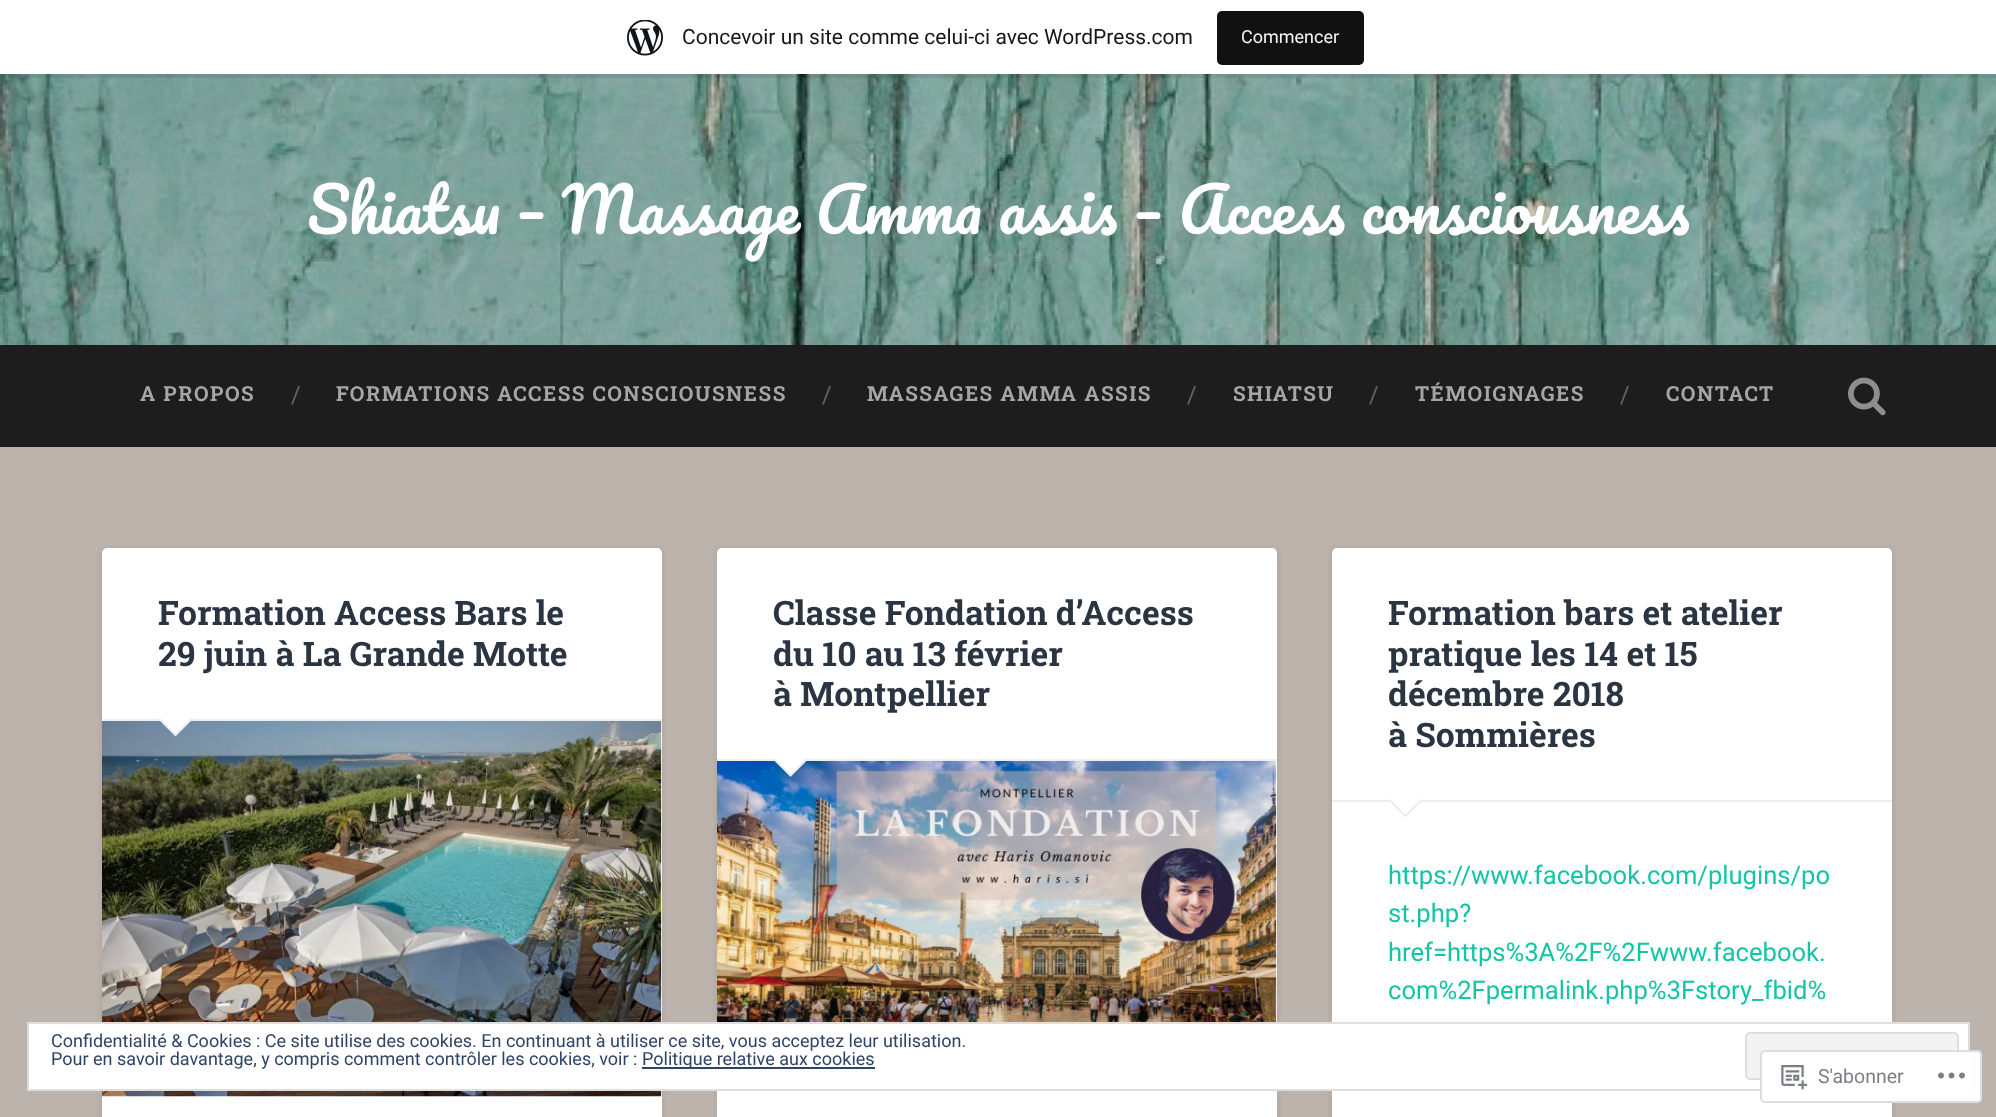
<svg xmlns="http://www.w3.org/2000/svg" width="1996" height="1117">
	<rect width="100%" height="100%" fill="#BCB3AC" />
	<image x="0" y="74" width="1996" height="271" href="assets/img2.png" />
	<path d="M2 74V78H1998V5H1996V74Z" fill="#000000" fill-opacity="0.08" />
	<rect x="0" y="0" width="1996" height="74" fill="#FFFFFF" />
	<image x="627" y="20" width="36" height="36" href="assets/img1.png" />
	<text x="682" y="44" font-family="Roboto" font-size="21" fill="#171717">Concevoir un site comme celui-ci avec WordPress.com</text>
	<rect x="1217" y="11" width="147" height="54" rx="5" fill="#111111" />
	<text x="1241" y="43" font-family="Roboto" font-size="18" fill="#F6F7F7">Commencer</text>
	<text x="307" y="234" font-family="Pacifico" font-size="60.75" fill="#FFFFFF">Shiatsu – Massage Amma assis – Access consciousness</text>
	<rect x="0" y="345" width="1996" height="102" fill="#1D1D1D" />
	<text x="140" y="401" font-family="Roboto Slab" font-size="20.7" font-weight="700" letter-spacing="1.5" fill="#A5A5A5">A PROPOS</text>
	<text x="291" y="403" font-family="Roboto Slab" font-size="24" fill="#616161">/</text>
	<text x="336" y="401" font-family="Roboto Slab" font-size="20.7" font-weight="700" letter-spacing="1.5" fill="#A5A5A5">FORMATIONS ACCESS CONSCIOUSNESS</text>
	<text x="822" y="403" font-family="Roboto Slab" font-size="24" fill="#616161">/</text>
	<text x="867" y="401" font-family="Roboto Slab" font-size="20.7" font-weight="700" letter-spacing="1.5" fill="#A5A5A5">MASSAGES AMMA ASSIS</text>
	<text x="1187" y="403" font-family="Roboto Slab" font-size="24" fill="#616161">/</text>
	<text x="1233" y="401" font-family="Roboto Slab" font-size="20.7" font-weight="700" letter-spacing="1.5" fill="#A5A5A5">SHIATSU</text>
	<text x="1369" y="403" font-family="Roboto Slab" font-size="24" fill="#616161">/</text>
	<text x="1415" y="401" font-family="Roboto Slab" font-size="20.7" font-weight="700" letter-spacing="1.5" fill="#A5A5A5">TÉMOIGNAGES</text>
	<text x="1620" y="403" font-family="Roboto Slab" font-size="24" fill="#616161">/</text>
	<text x="1666" y="401" font-family="Roboto Slab" font-size="20.7" font-weight="700" letter-spacing="1.5" fill="#A5A5A5">CONTACT</text>
	<image x="1848" y="377" width="38" height="39" href="assets/img3.png" />
	<rect x="102" y="549" width="560" height="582" rx="5" fill="#000000" fill-opacity="0.1" filter="blur(3px)" />
	<rect x="102" y="548" width="560" height="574" rx="5" fill="#FFFFFF" />
	<rect x="102" y="719" width="560" height="2" fill="#EEEEEE" />
	<g font-family="Roboto Slab" font-size="33.75" font-weight="700" fill="#2B3542">
		<text x="158" y="625">Formation Access Bars le</text>
		<text x="158" y="666">29 juin à La Grande Motte</text>
	</g>
	<image x="102" y="721" width="560" height="376" href="assets/img4.png" />
	<path d="M157.5 718.5H193.5L175.5 736.5Z" fill="#EEEEEE" />
	<path d="M159 717H192L175.5 733.5Z" fill="#FFFFFF" />
	<rect x="717" y="549" width="560" height="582" rx="5" fill="#000000" fill-opacity="0.1" filter="blur(3px)" />
	<rect x="717" y="548" width="560" height="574" rx="5" fill="#FFFFFF" />
	<rect x="717" y="759" width="560" height="2" fill="#EEEEEE" />
	<g font-family="Roboto Slab" font-size="33.75" font-weight="700" fill="#2B3542">
		<text x="773" y="625">Classe Fondation d’Access</text>
		<text x="773" y="666">du 10 au 13 février</text>
		<text x="773" y="706">à Montpellier</text>
	</g>
	<image x="717" y="761" width="560" height="261" href="assets/img5.png" />
	<path d="M772.5 759H808.5L790.5 777Z" fill="#EEEEEE" />
	<path d="M774 757.5H807L790.5 774Z" fill="#FFFFFF" />
	<rect x="1332" y="549" width="560" height="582" rx="5" fill="#000000" fill-opacity="0.1" filter="blur(3px)" />
	<rect x="1332" y="548" width="560" height="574" rx="5" fill="#FFFFFF" />
	<rect x="1332" y="800" width="560" height="2" fill="#EEEEEE" />
	<g font-family="Roboto Slab" font-size="33.75" font-weight="700" fill="#2B3542">
		<text x="1388" y="625">Formation bars et atelier</text>
		<text x="1388" y="666">pratique les 14 et 15</text>
		<text x="1388" y="706">décembre 2018</text>
		<text x="1388" y="747">à Sommières</text>
	</g>
	<path d="M1387.5 799.5H1423.5L1405.5 817.5Z" fill="#EEEEEE" />
	<path d="M1389 798H1422L1405.5 814.5Z" fill="#FFFFFF" />
	<g font-family="Roboto" font-size="25.6" fill="#13C4A5">
		<text x="1388" y="884">https://www.facebook.com/plugins/po</text>
		<text x="1388" y="922">st.php?</text>
		<text x="1388" y="961">href=https%3A%2F%2Fwww.facebook.</text>
		<text x="1388" y="999">com%2Fpermalink.php%3Fstory_fbid%</text>
	</g>
	<rect x="28" y="1023" width="1941" height="67" fill="#FFFFFF" stroke="#DEDEDE" stroke-width="2" />
	<text x="51" y="1047" font-family="Roboto" font-size="18" fill="#2E4467">Confidentialité &amp; Cookies : Ce site utilise des cookies. En continuant à utiliser ce site, vous acceptez leur utilisation.</text>
	<rect x="1746" y="1033" width="212" height="46" rx="4" fill="#F3F3F3" stroke="#DEDEDE" stroke-width="2" />
	<text x="51" y="1065" font-family="Roboto" font-size="18" fill="#2E4467">Pour en savoir davantage, y compris comment contrôler les cookies, voir :</text>
	<rect x="642" y="1067" width="233" height="2" fill="#2E4467" />
	<text x="642" y="1065" font-family="Roboto" font-size="18" fill="#2E4467">Politique relative aux cookies</text>
	<rect x="1760" y="1050" width="222" height="53" rx="5" fill="#FFFFFF" fill-opacity="0.98" />
	<rect x="1761" y="1051" width="220" height="51" rx="4" fill="none" stroke="#DCDCDE" stroke-opacity="0.98" stroke-width="2" />
	<image x="1781" y="1065" width="27" height="25" href="assets/img6.png" />
	<text x="1818" y="1083" font-family="Roboto" font-size="19.5" fill="#7B7F84">S'abonner</text>
	<image x="1938" y="1072" width="27" height="7" href="assets/img7.png" />
</svg>
